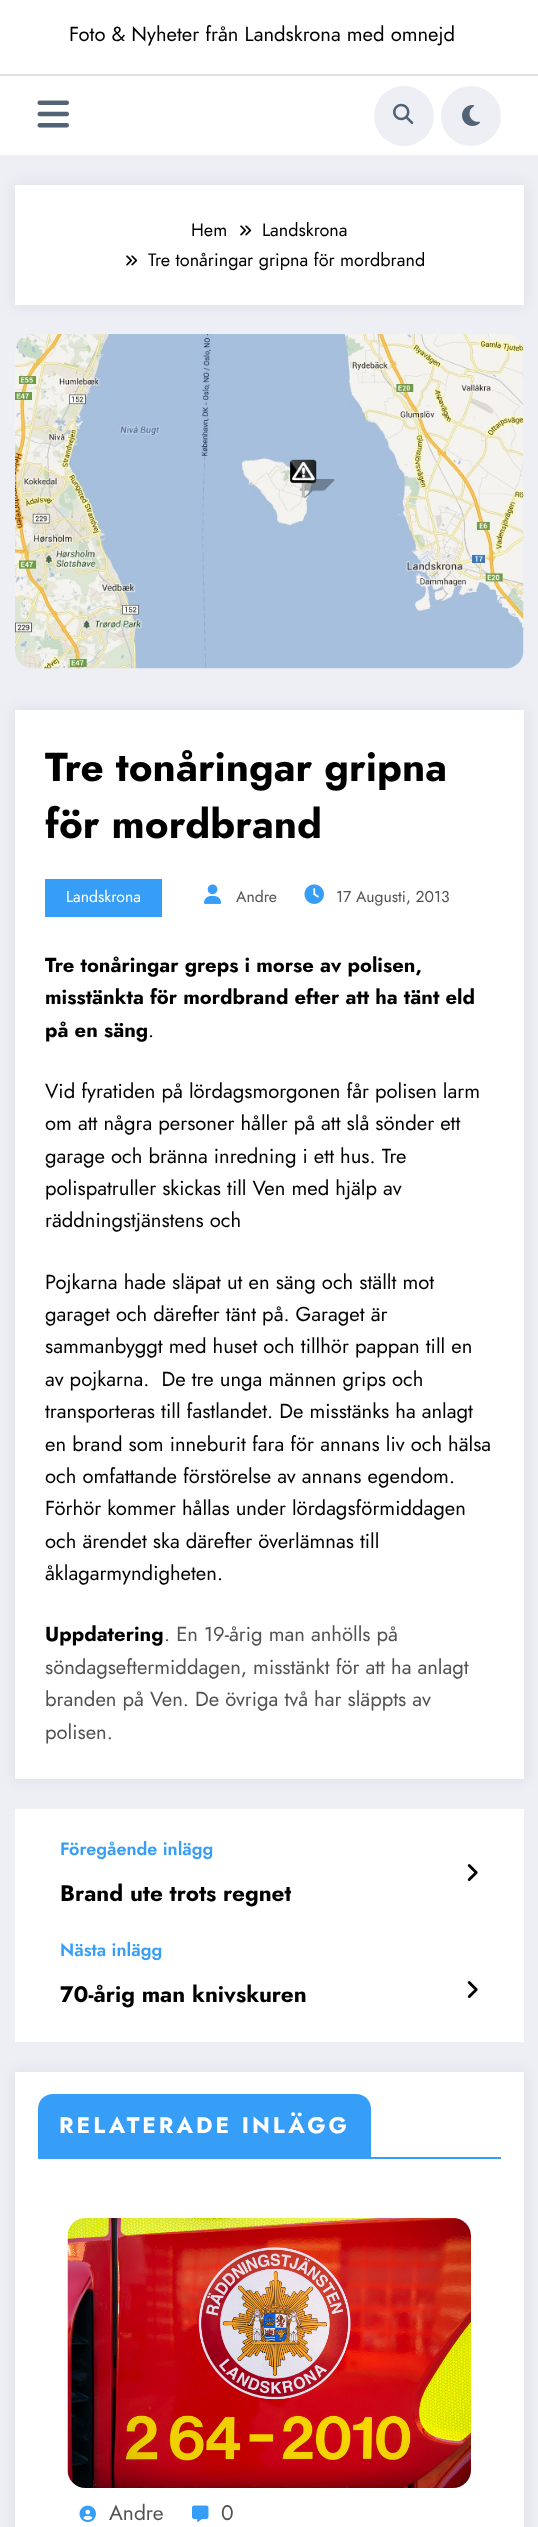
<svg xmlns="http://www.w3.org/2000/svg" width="538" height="2527">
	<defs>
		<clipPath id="clip1"><rect x="60" y="1878" width="231" height="32" /></clipPath>
	</defs>
	<rect width="100%" height="100%" fill="#EEEEF5" />
	<rect x="0" y="0" width="538" height="155" fill="#FFFFFF" />
	<text x="69" y="41" font-family="Jost" font-size="20.25" fill="#000000">Foto &amp; Nyheter från Landskrona med omnejd</text>
	<rect x="0" y="74" width="538" height="2" fill="#E1E1E1" />
	<image x="37" y="100" width="32" height="28" href="assets/img1.png" />
	<circle cx="404" cy="116" r="30" fill="#EEEEF5" />
	<image x="393" y="103" width="21" height="21" href="assets/img2.png" />
	<circle cx="471" cy="116" r="30" fill="#EEEEF5" />
	<image x="462" y="105" width="18" height="21" href="assets/img3.png" />
	<rect x="12" y="182" width="515" height="126" fill="#171723" fill-opacity="0.05" filter="blur(6px)" />
	<rect x="15" y="185" width="509" height="120" fill="#FFFFFF" />
	<text x="191" y="236" font-family="Jost" font-size="18" fill="#000000">Hem</text>
	<image x="240" y="225" width="12" height="11" href="assets/img4.png" />
	<text x="262" y="236" font-family="Jost" font-size="18" fill="#000000">Landskrona</text>
	<image x="126" y="255" width="12" height="11" href="assets/img4.png" />
	<text x="148" y="266" font-family="Jost" font-size="18" fill="#000000">Tre tonåringar gripna för mordbrand</text>
	<image x="15" y="334" width="509" height="335" href="assets/img5.png" />
	<rect x="12" y="707" width="515" height="1075" fill="#171723" fill-opacity="0.05" filter="blur(6px)" />
	<rect x="15" y="710" width="509" height="1069" fill="#FFFFFF" />
	<g font-family="Jost" font-size="40.5" font-weight="700" fill="#000000">
		<text x="45" y="781">Tre tonåringar gripna</text>
		<text x="45" y="838">för mordbrand</text>
	</g>
	<rect x="45" y="879" width="117" height="38" fill="#369EF6" />
	<text x="66" y="902" font-family="Jost" font-size="15.75" fill="#FFFFFF">Landskrona</text>
	<image x="204" y="884" width="18" height="20" href="assets/img6.png" />
	<text x="236" y="902" font-family="Jost" font-size="15.75" fill="#525252">Andre</text>
	<image x="304" y="884" width="20" height="20" href="assets/img7.png" />
	<text x="336" y="902" font-family="Jost" font-size="15.75" fill="#525252">17 Augusti, 2013</text>
	<g font-family="Jost" font-size="20.25" font-weight="700" fill="#000000">
		<text x="45" y="972">Tre tonåringar greps i morse av polisen,</text>
		<text x="45" y="1004">misstänkta för mordbrand efter att ha tänt eld</text>
		<text x="45" y="1037">på en säng</text>
	</g>
	<g font-family="Jost" font-size="20.25" fill="#000000">
		<text x="148" y="1037">.</text>
		<text x="45" y="1098">Vid fyratiden på lördagsmorgonen får polisen larm</text>
		<text x="45" y="1130">om att några personer håller på att slå sönder ett</text>
		<text x="45" y="1163">garage och bränna inredning i ett hus. Tre</text>
		<text x="45" y="1195">polispatruller skickas till Ven med hjälp av</text>
		<text x="45" y="1227">räddningstjänstens och</text>
		<text x="45" y="1289">Pojkarna hade släpat ut en säng och ställt mot</text>
		<text x="45" y="1321">garaget och därefter tänt på. Garaget är</text>
		<text x="45" y="1353">sammanbyggt med huset och tillhör pappan till en</text>
		<text x="45" y="1386" xml:space="preserve">av pojkarna.  De tre unga männen grips och</text>
		<text x="45" y="1418">transporteras till fastlandet. De misstänks ha anlagt</text>
		<text x="45" y="1451">en brand som inneburit fara för annans liv och hälsa</text>
		<text x="45" y="1483">och omfattande förstörelse av annans egendom.</text>
		<text x="45" y="1515">Förhör kommer hållas under lördagsförmiddagen</text>
		<text x="45" y="1548">och ärendet ska därefter överlämnas till</text>
		<text x="45" y="1580">åklagarmyndigheten.</text>
	</g>
	<text x="45" y="1641" font-family="Jost" font-size="20.25" font-weight="700" fill="#000000">Uppdatering</text>
	<g font-family="Jost" font-size="20.25" fill="#525252">
		<text x="164" y="1641">. En 19-årig man anhölls på</text>
		<text x="45" y="1674">söndagseftermiddagen, misstänkt för att ha anlagt</text>
		<text x="45" y="1706">branden på Ven. De övriga två har släppts av</text>
		<text x="45" y="1739">polisen.</text>
	</g>
	<rect x="15" y="1809" width="509" height="233" fill="#FFFFFF" />
	<text x="60" y="1855" font-family="Jost" font-size="18" font-weight="600" fill="#369EF6">Föregående inlägg</text>
	<g clip-path="url(#clip1)">
		<text x="60" y="1901" font-family="Jost" font-size="22.5" font-weight="700" fill="#000000">Brand ute trots regnet</text>
	</g>
	<image x="467" y="1864" width="11" height="17" href="assets/img8.png" />
	<text x="60" y="1956" font-family="Jost" font-size="18" font-weight="600" fill="#369EF6">Nästa inlägg</text>
	<text x="60" y="2002" font-family="Jost" font-size="22.5" font-weight="700" fill="#000000">70-årig man knivskuren</text>
	<image x="467" y="1981" width="11" height="17" href="assets/img8.png" />
	<rect x="12" y="2069" width="515" height="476" fill="#171723" fill-opacity="0.05" filter="blur(6px)" />
	<rect x="15" y="2072" width="509" height="455" fill="#FFFFFF" />
	<rect x="38" y="2157" width="463" height="2" fill="#369EF6" />
	<path d="M53 2094H356C364.5 2094 371 2100.5 371 2109V2157H38V2109C38 2100.5 44.5 2094 53 2094Z" fill="#369EF6" />
	<text x="59" y="2133" font-family="Jost" font-size="22.5" font-weight="700" letter-spacing="3" fill="#FFFFFF">RELATERADE INLÄGG</text>
	<image x="67" y="2218" width="404" height="270" href="assets/img9.png" />
	<image x="79" y="2505" width="17" height="18" href="assets/img10.png" />
	<text x="109" y="2520" font-family="Jost" font-size="21" fill="#525252">Andre</text>
	<image x="192" y="2505" width="17" height="17" href="assets/img11.png" />
	<text x="221" y="2520" font-family="Jost" font-size="21" fill="#525252">0</text>
</svg>
